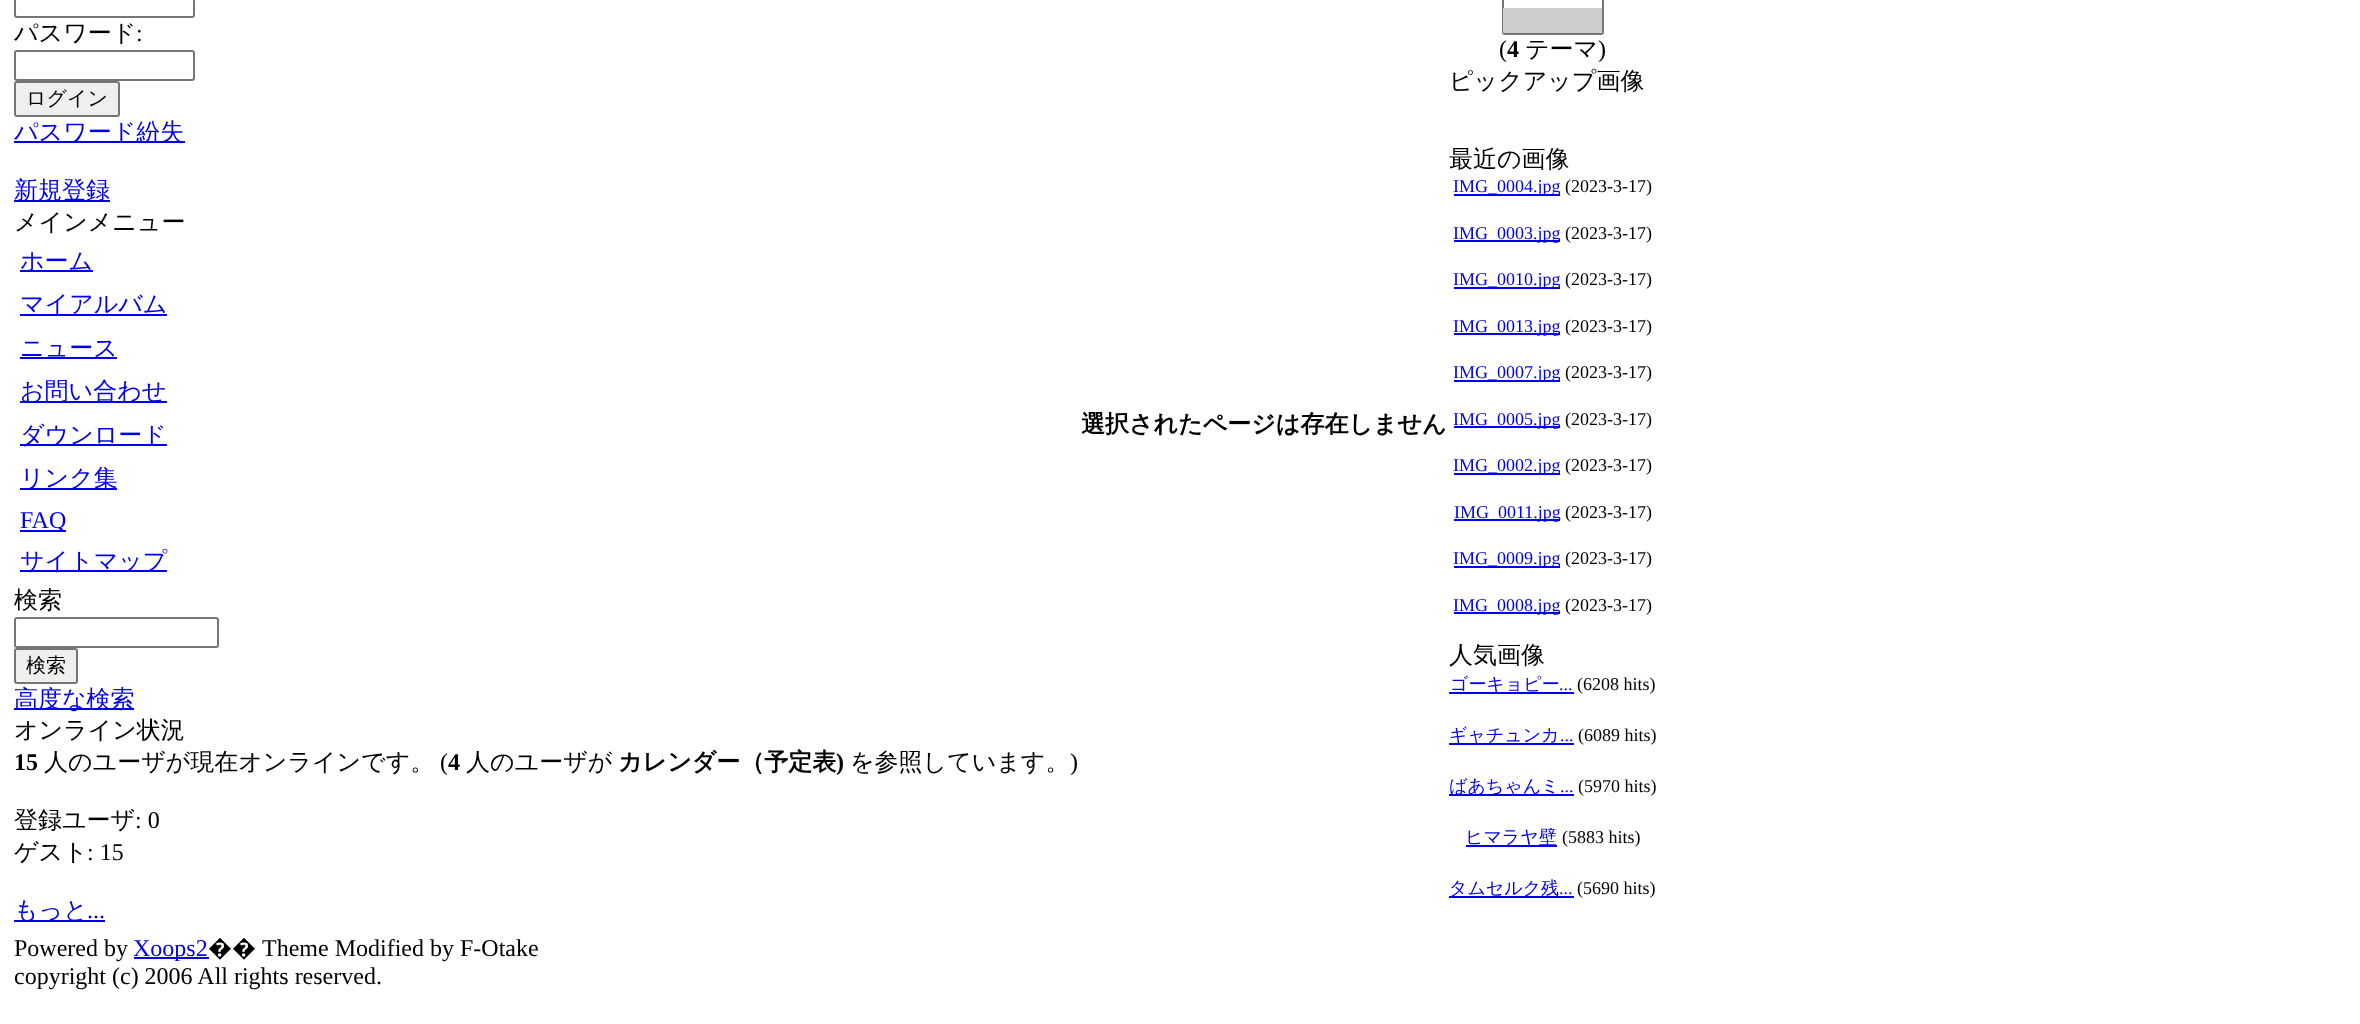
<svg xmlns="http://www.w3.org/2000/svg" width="2360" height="1024">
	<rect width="100%" height="100%" fill="#FFFFFF" />
	<rect x="15" y="-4" width="179" height="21" rx="2" fill="none" stroke="#767676" stroke-width="2" />
	<text x="14" y="41" font-family="WenQuanYi Zen Hei" font-size="24" font-weight="500" fill="#000000">パスワード</text>
	<text x="136" y="41" font-family="Liberation Serif" font-size="24" fill="#000000">:</text>
	<rect x="15" y="51" width="179" height="29" rx="2" fill="none" stroke="#767676" stroke-width="2" />
	<rect x="15" y="82" width="104" height="34" rx="2" fill="#EFEFEF" stroke="#767676" stroke-width="2" />
	<text x="26" y="105" font-family="WenQuanYi Zen Hei" font-size="20" font-weight="500" fill="#000000">ログイン</text>
	<rect x="14" y="141" width="171" height="2" fill="#0000EE" />
	<text x="14" y="140" font-family="WenQuanYi Zen Hei" font-size="24" font-weight="500" fill="#0000EE">パスワード紛失</text>
	<rect x="14" y="200" width="96" height="2" fill="#0000EE" />
	<text x="14" y="198" font-family="WenQuanYi Zen Hei" font-size="24" font-weight="500" fill="#0000EE">新規登録</text>
	<text x="14" y="230" font-family="WenQuanYi Zen Hei" font-size="24" font-weight="500" fill="#000000">メインメニュー</text>
	<rect x="20" y="270" width="73" height="2" fill="#0000EE" />
	<text x="20" y="269" font-family="WenQuanYi Zen Hei" font-size="24" font-weight="500" fill="#0000EE">ホーム</text>
	<rect x="20" y="314" width="147" height="2" fill="#0000EE" />
	<text x="20" y="312" font-family="WenQuanYi Zen Hei" font-size="24" font-weight="500" fill="#0000EE">マイアルバム</text>
	<rect x="20" y="357" width="97" height="2" fill="#0000EE" />
	<text x="20" y="356" font-family="WenQuanYi Zen Hei" font-size="24" font-weight="500" fill="#0000EE">ニュース</text>
	<rect x="20" y="401" width="147" height="2" fill="#0000EE" />
	<text x="20" y="399" font-family="WenQuanYi Zen Hei" font-size="24" font-weight="500" fill="#0000EE">お問い合わせ</text>
	<rect x="20" y="444" width="147" height="2" fill="#0000EE" />
	<text x="20" y="443" font-family="WenQuanYi Zen Hei" font-size="24" font-weight="500" fill="#0000EE">ダウンロード</text>
	<rect x="20" y="488" width="97" height="2" fill="#0000EE" />
	<text x="20" y="486" font-family="WenQuanYi Zen Hei" font-size="24" font-weight="500" fill="#0000EE">リンク集</text>
	<rect x="20" y="530" width="46" height="2" fill="#0000EE" />
	<text x="20" y="528" font-family="Liberation Serif" font-size="24" fill="#0000EE">FAQ</text>
	<rect x="20" y="570" width="147" height="2" fill="#0000EE" />
	<text x="20" y="569" font-family="WenQuanYi Zen Hei" font-size="24" font-weight="500" fill="#0000EE">サイトマップ</text>
	<text x="14" y="608" font-family="WenQuanYi Zen Hei" font-size="24" font-weight="500" fill="#000000">検索</text>
	<rect x="15" y="618" width="203" height="29" rx="2" fill="none" stroke="#767676" stroke-width="2" />
	<rect x="15" y="649" width="62" height="34" rx="2" fill="#EFEFEF" stroke="#767676" stroke-width="2" />
	<text x="26" y="672" font-family="WenQuanYi Zen Hei" font-size="20" font-weight="500" fill="#000000">検索</text>
	<rect x="14" y="708" width="120" height="2" fill="#0000EE" />
	<text x="14" y="707" font-family="WenQuanYi Zen Hei" font-size="24" font-weight="500" fill="#0000EE">高度な検索</text>
	<text x="14" y="738" font-family="WenQuanYi Zen Hei" font-size="24" font-weight="500" fill="#000000">オンライン状況</text>
	<text x="14" y="770" font-family="Liberation Serif" font-size="24" font-weight="700" fill="#000000">15</text>
	<text x="44" y="770" font-family="WenQuanYi Zen Hei" font-size="24" font-weight="500" fill="#000000">人のユーザが現在オンラインです。</text>
	<text x="440" y="770" font-family="Liberation Serif" font-size="24" fill="#000000">(</text>
	<text x="448" y="770" font-family="Liberation Serif" font-size="24" font-weight="700" fill="#000000">4</text>
	<text x="466" y="770" font-family="WenQuanYi Zen Hei" font-size="24" font-weight="500" fill="#000000">人のユーザが</text>
	<text x="618" y="770" font-family="WenQuanYi Zen Hei" font-size="24" font-weight="700" fill="#000000">カレンダー（予定表</text>
	<text x="836" y="770" font-family="Liberation Serif" font-size="24" font-weight="700" fill="#000000">)</text>
	<text x="850" y="770" font-family="WenQuanYi Zen Hei" font-size="24" font-weight="500" fill="#000000">を参照しています。</text>
	<text x="1070" y="770" font-family="Liberation Serif" font-size="24" fill="#000000">)</text>
	<text x="14" y="828" font-family="WenQuanYi Zen Hei" font-size="24" font-weight="500" fill="#000000">登録ユーザ</text>
	<text x="135" y="828" font-family="Liberation Serif" font-size="24" fill="#000000">: 0</text>
	<text x="14" y="860" font-family="WenQuanYi Zen Hei" font-size="24" font-weight="500" fill="#000000">ゲスト</text>
	<text x="87" y="860" font-family="Liberation Serif" font-size="24" fill="#000000">: 15</text>
	<rect x="14" y="920" width="91" height="2" fill="#0000EE" />
	<text x="14" y="918" font-family="WenQuanYi Zen Hei" font-size="24" font-weight="500" fill="#0000EE">もっと</text>
	<text x="87" y="918" font-family="Liberation Serif" font-size="24" fill="#0000EE">...</text>
	<text x="1081" y="432" font-family="WenQuanYi Zen Hei" font-size="24" font-weight="700" fill="#000000">選択されたページは存在しません</text>
	<rect x="1503" y="-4" width="100" height="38" rx="2" fill="none" stroke="#767676" stroke-width="2" />
	<path d="M1503 8H1602V31.5C1602 32.5 1601.5 33 1600.5 33H1504.5C1503.5 33 1503 32.5 1503 31.5Z" fill="#CECECE" />
	<text x="1499" y="57" font-family="Liberation Serif" font-size="24" fill="#000000">(</text>
	<text x="1507" y="57" font-family="Liberation Serif" font-size="24" font-weight="700" fill="#000000">4</text>
	<text x="1525" y="57" font-family="WenQuanYi Zen Hei" font-size="24" font-weight="500" fill="#000000">テーマ</text>
	<text x="1598" y="57" font-family="Liberation Serif" font-size="24" fill="#000000">)</text>
	<g font-family="WenQuanYi Zen Hei" font-size="24" font-weight="500" fill="#000000">
		<text x="1449" y="89">ピックアップ画像</text>
		<text x="1449" y="167">最近の画像</text>
	</g>
	<rect x="1454" y="194" width="106" height="2" fill="#0000EE" />
	<text x="1453" y="192" font-family="Liberation Serif" font-size="18" fill="#0000EE">IMG_0004.jpg</text>
	<text x="1565" y="192" font-family="Liberation Serif" font-size="18" fill="#000000">(2023-3-17)</text>
	<rect x="1454" y="240" width="106" height="2" fill="#0000EE" />
	<text x="1453" y="239" font-family="Liberation Serif" font-size="18" fill="#0000EE">IMG_0003.jpg</text>
	<text x="1565" y="239" font-family="Liberation Serif" font-size="18" fill="#000000">(2023-3-17)</text>
	<rect x="1454" y="287" width="106" height="2" fill="#0000EE" />
	<text x="1453" y="285" font-family="Liberation Serif" font-size="18" fill="#0000EE">IMG_0010.jpg</text>
	<text x="1565" y="285" font-family="Liberation Serif" font-size="18" fill="#000000">(2023-3-17)</text>
	<rect x="1454" y="333" width="106" height="2" fill="#0000EE" />
	<text x="1453" y="332" font-family="Liberation Serif" font-size="18" fill="#0000EE">IMG_0013.jpg</text>
	<text x="1565" y="332" font-family="Liberation Serif" font-size="18" fill="#000000">(2023-3-17)</text>
	<rect x="1454" y="380" width="106" height="2" fill="#0000EE" />
	<text x="1453" y="378" font-family="Liberation Serif" font-size="18" fill="#0000EE">IMG_0007.jpg</text>
	<text x="1565" y="378" font-family="Liberation Serif" font-size="18" fill="#000000">(2023-3-17)</text>
	<rect x="1454" y="426" width="106" height="2" fill="#0000EE" />
	<text x="1453" y="425" font-family="Liberation Serif" font-size="18" fill="#0000EE">IMG_0005.jpg</text>
	<text x="1565" y="425" font-family="Liberation Serif" font-size="18" fill="#000000">(2023-3-17)</text>
	<rect x="1454" y="473" width="106" height="2" fill="#0000EE" />
	<text x="1453" y="471" font-family="Liberation Serif" font-size="18" fill="#0000EE">IMG_0002.jpg</text>
	<text x="1565" y="471" font-family="Liberation Serif" font-size="18" fill="#000000">(2023-3-17)</text>
	<rect x="1454" y="519" width="106" height="2" fill="#0000EE" />
	<text x="1454" y="518" font-family="Liberation Serif" font-size="18" fill="#0000EE">IMG_0011.jpg</text>
	<text x="1565" y="518" font-family="Liberation Serif" font-size="18" fill="#000000">(2023-3-17)</text>
	<rect x="1454" y="566" width="106" height="2" fill="#0000EE" />
	<text x="1453" y="564" font-family="Liberation Serif" font-size="18" fill="#0000EE">IMG_0009.jpg</text>
	<text x="1565" y="564" font-family="Liberation Serif" font-size="18" fill="#000000">(2023-3-17)</text>
	<rect x="1454" y="612" width="106" height="2" fill="#0000EE" />
	<text x="1453" y="611" font-family="Liberation Serif" font-size="18" fill="#0000EE">IMG_0008.jpg</text>
	<text x="1565" y="611" font-family="Liberation Serif" font-size="18" fill="#000000">(2023-3-17)</text>
	<text x="1449" y="663" font-family="WenQuanYi Zen Hei" font-size="24" font-weight="500" fill="#000000">人気画像</text>
	<rect x="1449" y="692" width="125" height="2" fill="#0000EE" />
	<text x="1450" y="690" font-family="WenQuanYi Zen Hei" font-size="18" font-weight="500" fill="#0000EE">ゴーキョピー</text>
	<text x="1559" y="690" font-family="Liberation Serif" font-size="18" fill="#0000EE">...</text>
	<text x="1577" y="690" font-family="Liberation Serif" font-size="18" fill="#000000">(6208 hits)</text>
	<rect x="1449" y="743" width="125" height="2" fill="#0000EE" />
	<text x="1449" y="741" font-family="WenQuanYi Zen Hei" font-size="18" font-weight="500" fill="#0000EE">ギャチュンカ</text>
	<text x="1560" y="741" font-family="Liberation Serif" font-size="18" fill="#0000EE">...</text>
	<text x="1578" y="741" font-family="Liberation Serif" font-size="18" fill="#000000">(6089 hits)</text>
	<rect x="1449" y="794" width="125" height="2" fill="#0000EE" />
	<text x="1449" y="792" font-family="WenQuanYi Zen Hei" font-size="18" font-weight="500" fill="#0000EE">ばあちゃんミ</text>
	<text x="1560" y="792" font-family="Liberation Serif" font-size="18" fill="#0000EE">...</text>
	<text x="1578" y="792" font-family="Liberation Serif" font-size="18" fill="#000000">(5970 hits)</text>
	<rect x="1466" y="845" width="91" height="2" fill="#0000EE" />
	<text x="1465" y="843" font-family="WenQuanYi Zen Hei" font-size="18" font-weight="500" fill="#0000EE">ヒマラヤ壁</text>
	<text x="1562" y="843" font-family="Liberation Serif" font-size="18" fill="#000000">(5883 hits)</text>
	<rect x="1449" y="896" width="125" height="2" fill="#0000EE" />
	<text x="1449" y="894" font-family="WenQuanYi Zen Hei" font-size="18" font-weight="500" fill="#0000EE">タムセルク残</text>
	<text x="1559" y="894" font-family="Liberation Serif" font-size="18" fill="#0000EE">...</text>
	<text x="1577" y="894" font-family="Liberation Serif" font-size="18" fill="#000000">(5690 hits)</text>
	<text x="14" y="956" font-family="Liberation Serif" font-size="24" fill="#000000">Powered by</text>
	<rect x="134" y="957" width="75" height="2" fill="#0000EE" />
	<text x="133" y="956" font-family="Liberation Serif" font-size="24" fill="#0000EE">Xoops2</text>
	<text x="208" y="956" font-family="Noto Sans" font-size="24" fill="#000000">��</text>
	<g font-family="Liberation Serif" font-size="24" fill="#000000">
		<text x="262" y="956">Theme Modified by F-Otake</text>
		<text x="14" y="984">copyright (c) 2006 All rights reserved.</text>
	</g>
</svg>
